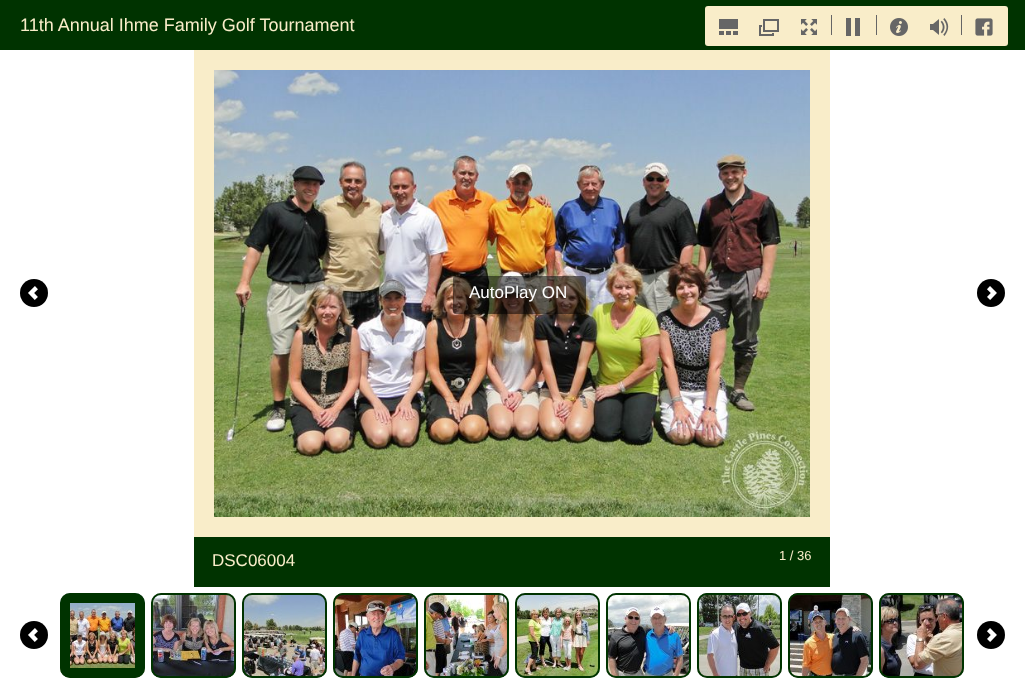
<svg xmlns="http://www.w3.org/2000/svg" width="1025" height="684">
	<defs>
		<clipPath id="clip1"><rect x="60" y="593" width="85" height="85" rx="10" /></clipPath>
		<clipPath id="clip2"><rect x="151" y="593" width="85" height="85" rx="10" /></clipPath>
		<clipPath id="clip3"><rect x="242" y="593" width="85" height="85" rx="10" /></clipPath>
		<clipPath id="clip4"><rect x="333" y="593" width="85" height="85" rx="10" /></clipPath>
		<clipPath id="clip5"><rect x="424" y="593" width="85" height="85" rx="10" /></clipPath>
		<clipPath id="clip6"><rect x="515" y="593" width="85" height="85" rx="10" /></clipPath>
		<clipPath id="clip7"><rect x="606" y="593" width="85" height="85" rx="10" /></clipPath>
		<clipPath id="clip8"><rect x="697" y="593" width="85" height="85" rx="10" /></clipPath>
		<clipPath id="clip9"><rect x="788" y="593" width="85" height="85" rx="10" /></clipPath>
		<clipPath id="clip10"><rect x="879" y="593" width="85" height="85" rx="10" /></clipPath>
	</defs>
	<rect width="100%" height="100%" fill="#FFFFFF" />
	<rect x="0" y="0" width="1025" height="50" fill="#003300" />
	<text x="20" y="31" font-family="Liberation Sans" font-size="18" fill="#F9EDC9">11th Annual Ihme Family Golf Tournament</text>
	<rect x="705" y="6" width="303" height="40" rx="3" fill="#F9EDC9" />
	<image x="719" y="19" width="19" height="16" href="assets/img1.png" />
	<image x="759" y="19" width="20" height="17" href="assets/img2.png" />
	<image x="801" y="19" width="16" height="16" href="assets/img3.png" />
	<rect x="831" y="15" width="1" height="20" fill="#666666" />
	<image x="846" y="18" width="14" height="18" href="assets/img4.png" />
	<rect x="876" y="15" width="1" height="20" fill="#666666" />
	<image x="890" y="18" width="18" height="18" href="assets/img5.png" />
	<image x="930" y="18" width="19" height="18" href="assets/img6.png" />
	<rect x="961" y="15" width="1" height="20" fill="#666666" />
	<image x="975" y="18" width="18" height="18" href="assets/img7.png" />
	<rect x="204" y="60" width="616" height="467" fill="none" stroke="#F9EDC9" stroke-width="20" />
	<image x="214" y="70" width="596" height="447" href="assets/img8.png" />
	<circle cx="34" cy="293" r="14" fill="#000000" />
	<image x="28" y="286" width="10" height="14" href="assets/img9.png" />
	<rect x="453" y="276" width="133" height="38" rx="3" fill="#000000" fill-opacity="0.5" />
	<text x="469" y="298" font-family="Liberation Sans" font-size="17" fill="#FFFFFF">AutoPlay ON</text>
	<circle cx="991" cy="293" r="14" fill="#000000" />
	<image x="987" y="286" width="10" height="14" href="assets/img10.png" />
	<rect x="194" y="537" width="636" height="50" fill="#003300" />
	<text x="212" y="566" font-family="Liberation Sans" font-size="17" fill="#F9EDC9">DSC06004</text>
	<text x="779" y="560" font-family="Liberation Sans" font-size="13" fill="#F9EDC9">1 / 36</text>
	<g clip-path="url(#clip1)">
		<rect x="60" y="593" width="85" height="85" rx="10" fill="#000000" fill-opacity="0.4" filter="blur(2.5px)" />
	</g>
	<image x="60" y="593" width="85" height="85" href="assets/img11.png" />
	<rect x="65" y="598" width="75" height="75" rx="5" fill="none" stroke="#003300" stroke-width="10" />
	<g clip-path="url(#clip2)">
		<rect x="151" y="593" width="85" height="85" rx="10" fill="#000000" fill-opacity="0.4" filter="blur(2.5px)" />
	</g>
	<image x="151" y="593" width="85" height="85" href="assets/img12.png" />
	<rect x="152" y="594" width="83" height="83" rx="9" fill="none" stroke="#003300" stroke-width="2" />
	<g clip-path="url(#clip3)">
		<rect x="242" y="593" width="85" height="85" rx="10" fill="#000000" fill-opacity="0.4" filter="blur(2.5px)" />
	</g>
	<image x="242" y="593" width="85" height="85" href="assets/img13.png" />
	<rect x="243" y="594" width="83" height="83" rx="9" fill="none" stroke="#003300" stroke-width="2" />
	<g clip-path="url(#clip4)">
		<rect x="333" y="593" width="85" height="85" rx="10" fill="#000000" fill-opacity="0.4" filter="blur(2.5px)" />
	</g>
	<image x="333" y="593" width="85" height="85" href="assets/img14.png" />
	<rect x="334" y="594" width="83" height="83" rx="9" fill="none" stroke="#003300" stroke-width="2" />
	<g clip-path="url(#clip5)">
		<rect x="424" y="593" width="85" height="85" rx="10" fill="#000000" fill-opacity="0.4" filter="blur(2.5px)" />
	</g>
	<image x="424" y="593" width="85" height="85" href="assets/img15.png" />
	<rect x="425" y="594" width="83" height="83" rx="9" fill="none" stroke="#003300" stroke-width="2" />
	<g clip-path="url(#clip6)">
		<rect x="515" y="593" width="85" height="85" rx="10" fill="#000000" fill-opacity="0.4" filter="blur(2.5px)" />
	</g>
	<image x="515" y="593" width="85" height="85" href="assets/img16.png" />
	<rect x="516" y="594" width="83" height="83" rx="9" fill="none" stroke="#003300" stroke-width="2" />
	<g clip-path="url(#clip7)">
		<rect x="606" y="593" width="85" height="85" rx="10" fill="#000000" fill-opacity="0.4" filter="blur(2.5px)" />
	</g>
	<image x="606" y="593" width="85" height="85" href="assets/img17.png" />
	<rect x="607" y="594" width="83" height="83" rx="9" fill="none" stroke="#003300" stroke-width="2" />
	<g clip-path="url(#clip8)">
		<rect x="697" y="593" width="85" height="85" rx="10" fill="#000000" fill-opacity="0.4" filter="blur(2.5px)" />
	</g>
	<image x="697" y="593" width="85" height="85" href="assets/img18.png" />
	<rect x="698" y="594" width="83" height="83" rx="9" fill="none" stroke="#003300" stroke-width="2" />
	<g clip-path="url(#clip9)">
		<rect x="788" y="593" width="85" height="85" rx="10" fill="#000000" fill-opacity="0.4" filter="blur(2.5px)" />
	</g>
	<image x="788" y="593" width="85" height="85" href="assets/img19.png" />
	<rect x="789" y="594" width="83" height="83" rx="9" fill="none" stroke="#003300" stroke-width="2" />
	<g clip-path="url(#clip10)">
		<rect x="879" y="593" width="85" height="85" rx="10" fill="#000000" fill-opacity="0.4" filter="blur(2.5px)" />
	</g>
	<image x="879" y="593" width="85" height="85" href="assets/img20.png" />
	<rect x="880" y="594" width="83" height="83" rx="9" fill="none" stroke="#003300" stroke-width="2" />
	<circle cx="34" cy="635" r="14" fill="#000000" />
	<image x="28" y="628" width="10" height="14" href="assets/img9.png" />
	<circle cx="991" cy="635" r="14" fill="#000000" />
	<image x="987" y="628" width="10" height="14" href="assets/img10.png" />
</svg>
